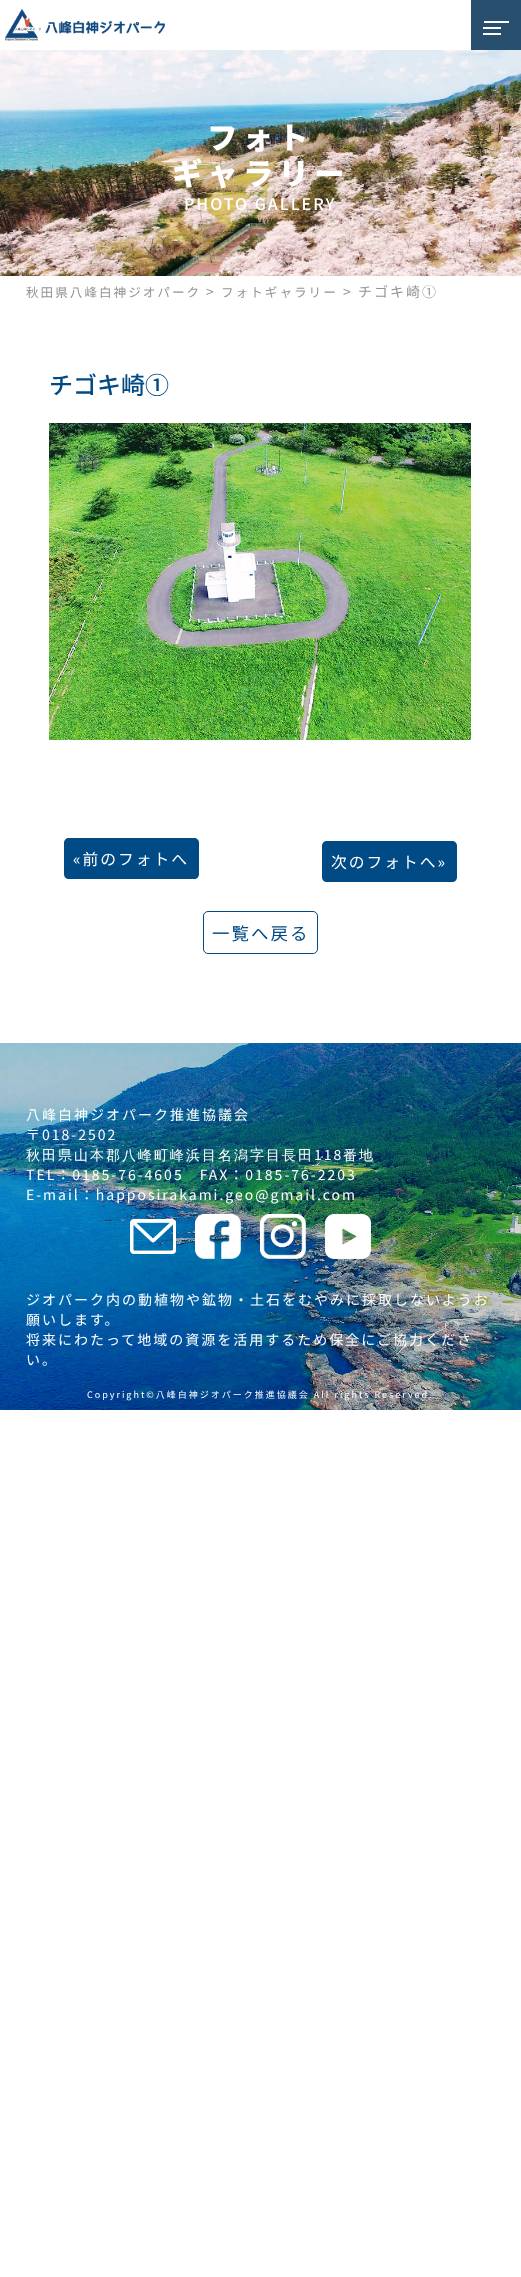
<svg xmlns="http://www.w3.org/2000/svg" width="521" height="2277">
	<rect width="100%" height="100%" fill="#FFFFFF" />
	<image x="5" y="9" width="160" height="32" href="assets/img1.png" />
	<rect x="471" y="0" width="50" height="50" fill="#28506E" />
	<rect x="484" y="21" width="25" height="2" fill="#FFFFFF" />
	<rect x="483" y="27" width="18" height="2" fill="#FFFFFF" />
	<rect x="483" y="33" width="18" height="2" fill="#FFFFFF" />
	<image x="0" y="50" width="521" height="226" href="assets/img2.png" />
	<g font-family="Noto Sans JP" font-size="30.5" font-weight="900" letter-spacing="5" fill="#FFFFFF">
		<text x="207" y="149">フォト</text>
		<text x="172" y="185">ギャラリー</text>
	</g>
	<text x="184" y="210" font-family="Noto Sans JP" font-size="16" font-weight="500" letter-spacing="2" fill="#FFFFFF">PHOTO GALLERY</text>
	<text x="26" y="297" font-family="Noto Sans JP" font-size="12.6" letter-spacing="2" fill="#949494">秋田県八峰白神ジオパーク</text>
	<text x="206" y="297" font-family="Noto Sans JP" font-size="14" letter-spacing="2" fill="#949494">&gt;</text>
	<text x="221" y="297" font-family="Noto Sans JP" font-size="12.6" letter-spacing="2" fill="#949494">フォトギャラリー</text>
	<text x="343" y="297" font-family="Noto Sans JP" font-size="14" letter-spacing="2" fill="#949494">&gt; チゴキ崎①</text>
	<text x="49" y="394" font-family="Noto Sans JP" font-size="24" font-weight="500" fill="#004A85">チゴキ崎①</text>
	<image x="49" y="423" width="422" height="317" href="assets/img3.png" />
	<path d="M69 838H83V879H69C66 879 64 877 64 874V843C64 840 66 838 69 838Z" fill="#004A85" />
	<path d="M83 838H194C197 838 199 840 199 843V874C199 877 197 879 194 879H83Z" fill="#004A85" />
	<text x="73" y="865" font-family="Noto Sans JP" font-size="15.75" letter-spacing="2" fill="#FFFFFF">«前のフォトへ</text>
	<path d="M327 841H438V882H327C324 882 322 880 322 877V846C322 843 324 841 327 841Z" fill="#004A85" />
	<path d="M438 841H452C455 841 457 843 457 846V877C457 880 455 882 452 882H438Z" fill="#004A85" />
	<text x="331" y="868" font-family="Noto Sans JP" font-size="15.75" letter-spacing="2" fill="#FFFFFF">次のフォトへ»</text>
	<rect x="203.5" y="911.5" width="114" height="42" rx="4.5" fill="none" stroke="#004A85" />
	<text x="212" y="940" font-family="Noto Sans JP" font-size="17.5" letter-spacing="2" fill="#004A85">一覧へ戻る</text>
	<image x="0" y="1043" width="521" height="367" href="assets/img4.png" />
	<g font-family="Noto Sans JP" font-size="14" letter-spacing="2" fill="#FFFFFF">
		<text x="26" y="1120">八峰白神ジオパーク推進協議会</text>
		<text x="26" y="1140">〒018-2502</text>
	</g>
	<text x="26" y="1160" font-family="WenQuanYi Zen Hei" font-size="14" font-weight="500" letter-spacing="2" fill="#FFFFFF">秋田県山本郡八峰町峰浜目名潟字目長田</text>
	<text x="314" y="1160" font-family="Noto Sans JP" font-size="14" letter-spacing="2" fill="#FFFFFF">118</text>
	<text x="343" y="1160" font-family="WenQuanYi Zen Hei" font-size="14" font-weight="500" letter-spacing="2" fill="#FFFFFF">番地</text>
	<g font-family="Noto Sans JP" font-size="14" letter-spacing="2" fill="#FFFFFF">
		<text x="26" y="1180">TEL：0185-76-4605　FAX：0185-76-2203</text>
		<text x="26" y="1200">E-mail：happosirakami.geo@gmail.com</text>
	</g>
	<image x="130" y="1219" width="46" height="35" href="assets/img5.png" />
	<image x="195" y="1214" width="46" height="45" href="assets/img6.png" />
	<image x="260" y="1214" width="46" height="45" href="assets/img7.png" />
	<image x="325" y="1214" width="46" height="45" href="assets/img8.png" />
	<g font-family="Noto Sans JP" font-size="14" letter-spacing="2" fill="#FFFFFF">
		<text x="26" y="1305">ジオパーク内の動植物や鉱物・土石をむやみに採取しないようお</text>
		<text x="26" y="1325">願いします。</text>
		<text x="26" y="1345">将来にわたって地域の資源を活用するため保全にご協力くださ</text>
		<text x="26" y="1365">い。</text>
	</g>
	<text x="87" y="1398" font-family="Noto Sans JP" font-size="9" letter-spacing="2" fill="#FFFFFF">Copyright©八峰白神ジオパーク推進協議会 All rights Reserved.</text>
</svg>
